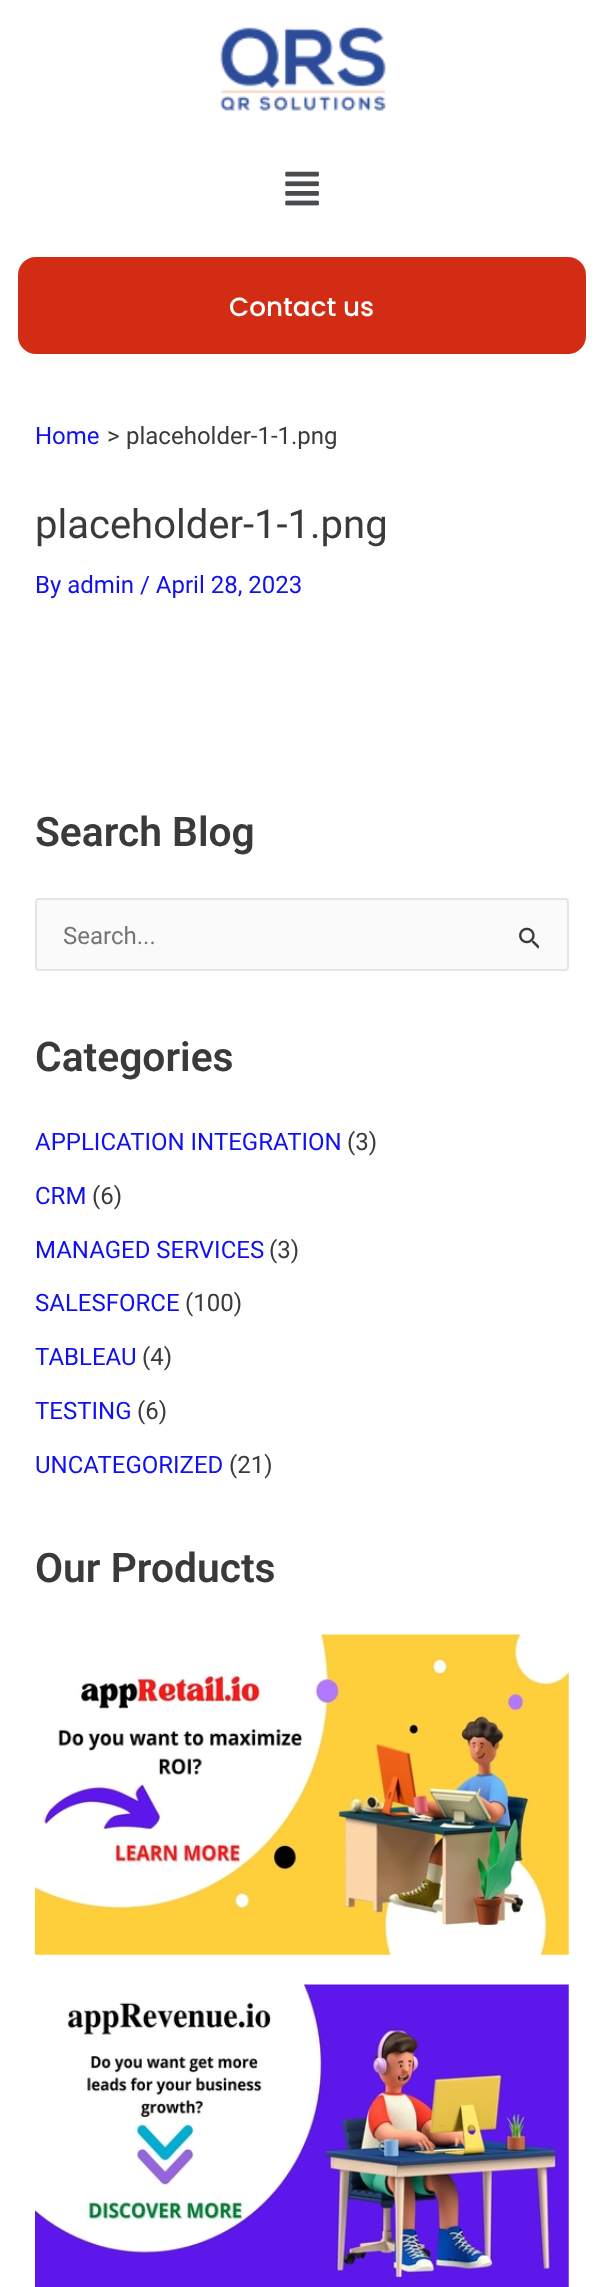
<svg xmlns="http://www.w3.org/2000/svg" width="603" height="2287">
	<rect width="100%" height="100%" fill="#FFFFFF" />
	<image x="220" y="26" width="166" height="85" href="assets/img1.png" />
	<image x="285" y="171" width="34" height="35" href="assets/img2.png" />
	<rect x="18" y="257" width="568" height="97" rx="18" fill="#D32C15" />
	<text x="229" y="316" font-family="Poppins" font-size="26.25" font-weight="500" fill="#FFFFFF">Contact us</text>
	<text x="35" y="444" font-family="Roboto" font-size="24" fill="#1111EF">Home</text>
	<g font-family="Roboto" font-size="24" fill="#3A3A3A">
		<text x="107" y="444">&gt;</text>
		<text x="126" y="444">placeholder-1-1.png</text>
	</g>
	<text x="35" y="538" font-family="Roboto" font-size="40" fill="#3A3A3A">placeholder-1-1.png</text>
	<text x="35" y="593" font-family="Roboto" font-size="24" fill="#1111EF">By admin / April 28, 2023</text>
	<text x="35" y="846" font-family="Roboto" font-size="40.75" font-weight="600" fill="#3A3A3A">Search Blog</text>
	<rect x="36" y="899" width="532" height="71" rx="3" fill="#FAFAFA" stroke="#E5E5E5" stroke-width="2" />
	<text x="63" y="944" font-family="Roboto" font-size="24" fill="#757575">Search...</text>
	<image x="519" y="927" width="20" height="22" href="assets/img3.png" />
	<text x="35" y="1071" font-family="Roboto" font-size="40.75" font-weight="600" fill="#3A3A3A">Categories</text>
	<text x="35" y="1150" font-family="Roboto" font-size="24" fill="#1111EF">APPLICATION INTEGRATION</text>
	<text x="347" y="1150" font-family="Roboto" font-size="24" fill="#3A3A3A">(3)</text>
	<text x="35" y="1204" font-family="Roboto" font-size="24" fill="#1111EF">CRM</text>
	<text x="92" y="1204" font-family="Roboto" font-size="24" fill="#3A3A3A">(6)</text>
	<text x="35" y="1258" font-family="Roboto" font-size="24" fill="#1111EF">MANAGED SERVICES</text>
	<text x="269" y="1258" font-family="Roboto" font-size="24" fill="#3A3A3A">(3)</text>
	<text x="35" y="1311" font-family="Roboto" font-size="24" fill="#1111EF">SALESFORCE</text>
	<text x="185" y="1311" font-family="Roboto" font-size="24" fill="#3A3A3A">(100)</text>
	<text x="35" y="1365" font-family="Roboto" font-size="24" fill="#1111EF">TABLEAU</text>
	<text x="142" y="1365" font-family="Roboto" font-size="24" fill="#3A3A3A">(4)</text>
	<text x="35" y="1419" font-family="Roboto" font-size="24" fill="#1111EF">TESTING</text>
	<text x="137" y="1419" font-family="Roboto" font-size="24" fill="#3A3A3A">(6)</text>
	<text x="35" y="1473" font-family="Roboto" font-size="24" fill="#1111EF">UNCATEGORIZED</text>
	<text x="229" y="1473" font-family="Roboto" font-size="24" fill="#3A3A3A">(21)</text>
	<text x="35" y="1582" font-family="Roboto" font-size="40.75" font-weight="600" fill="#3A3A3A">Our Products</text>
	<image x="35" y="1634" width="534" height="321" href="assets/img4.png" />
	<image x="35" y="1984" width="534" height="303" href="assets/img5.png" />
</svg>
